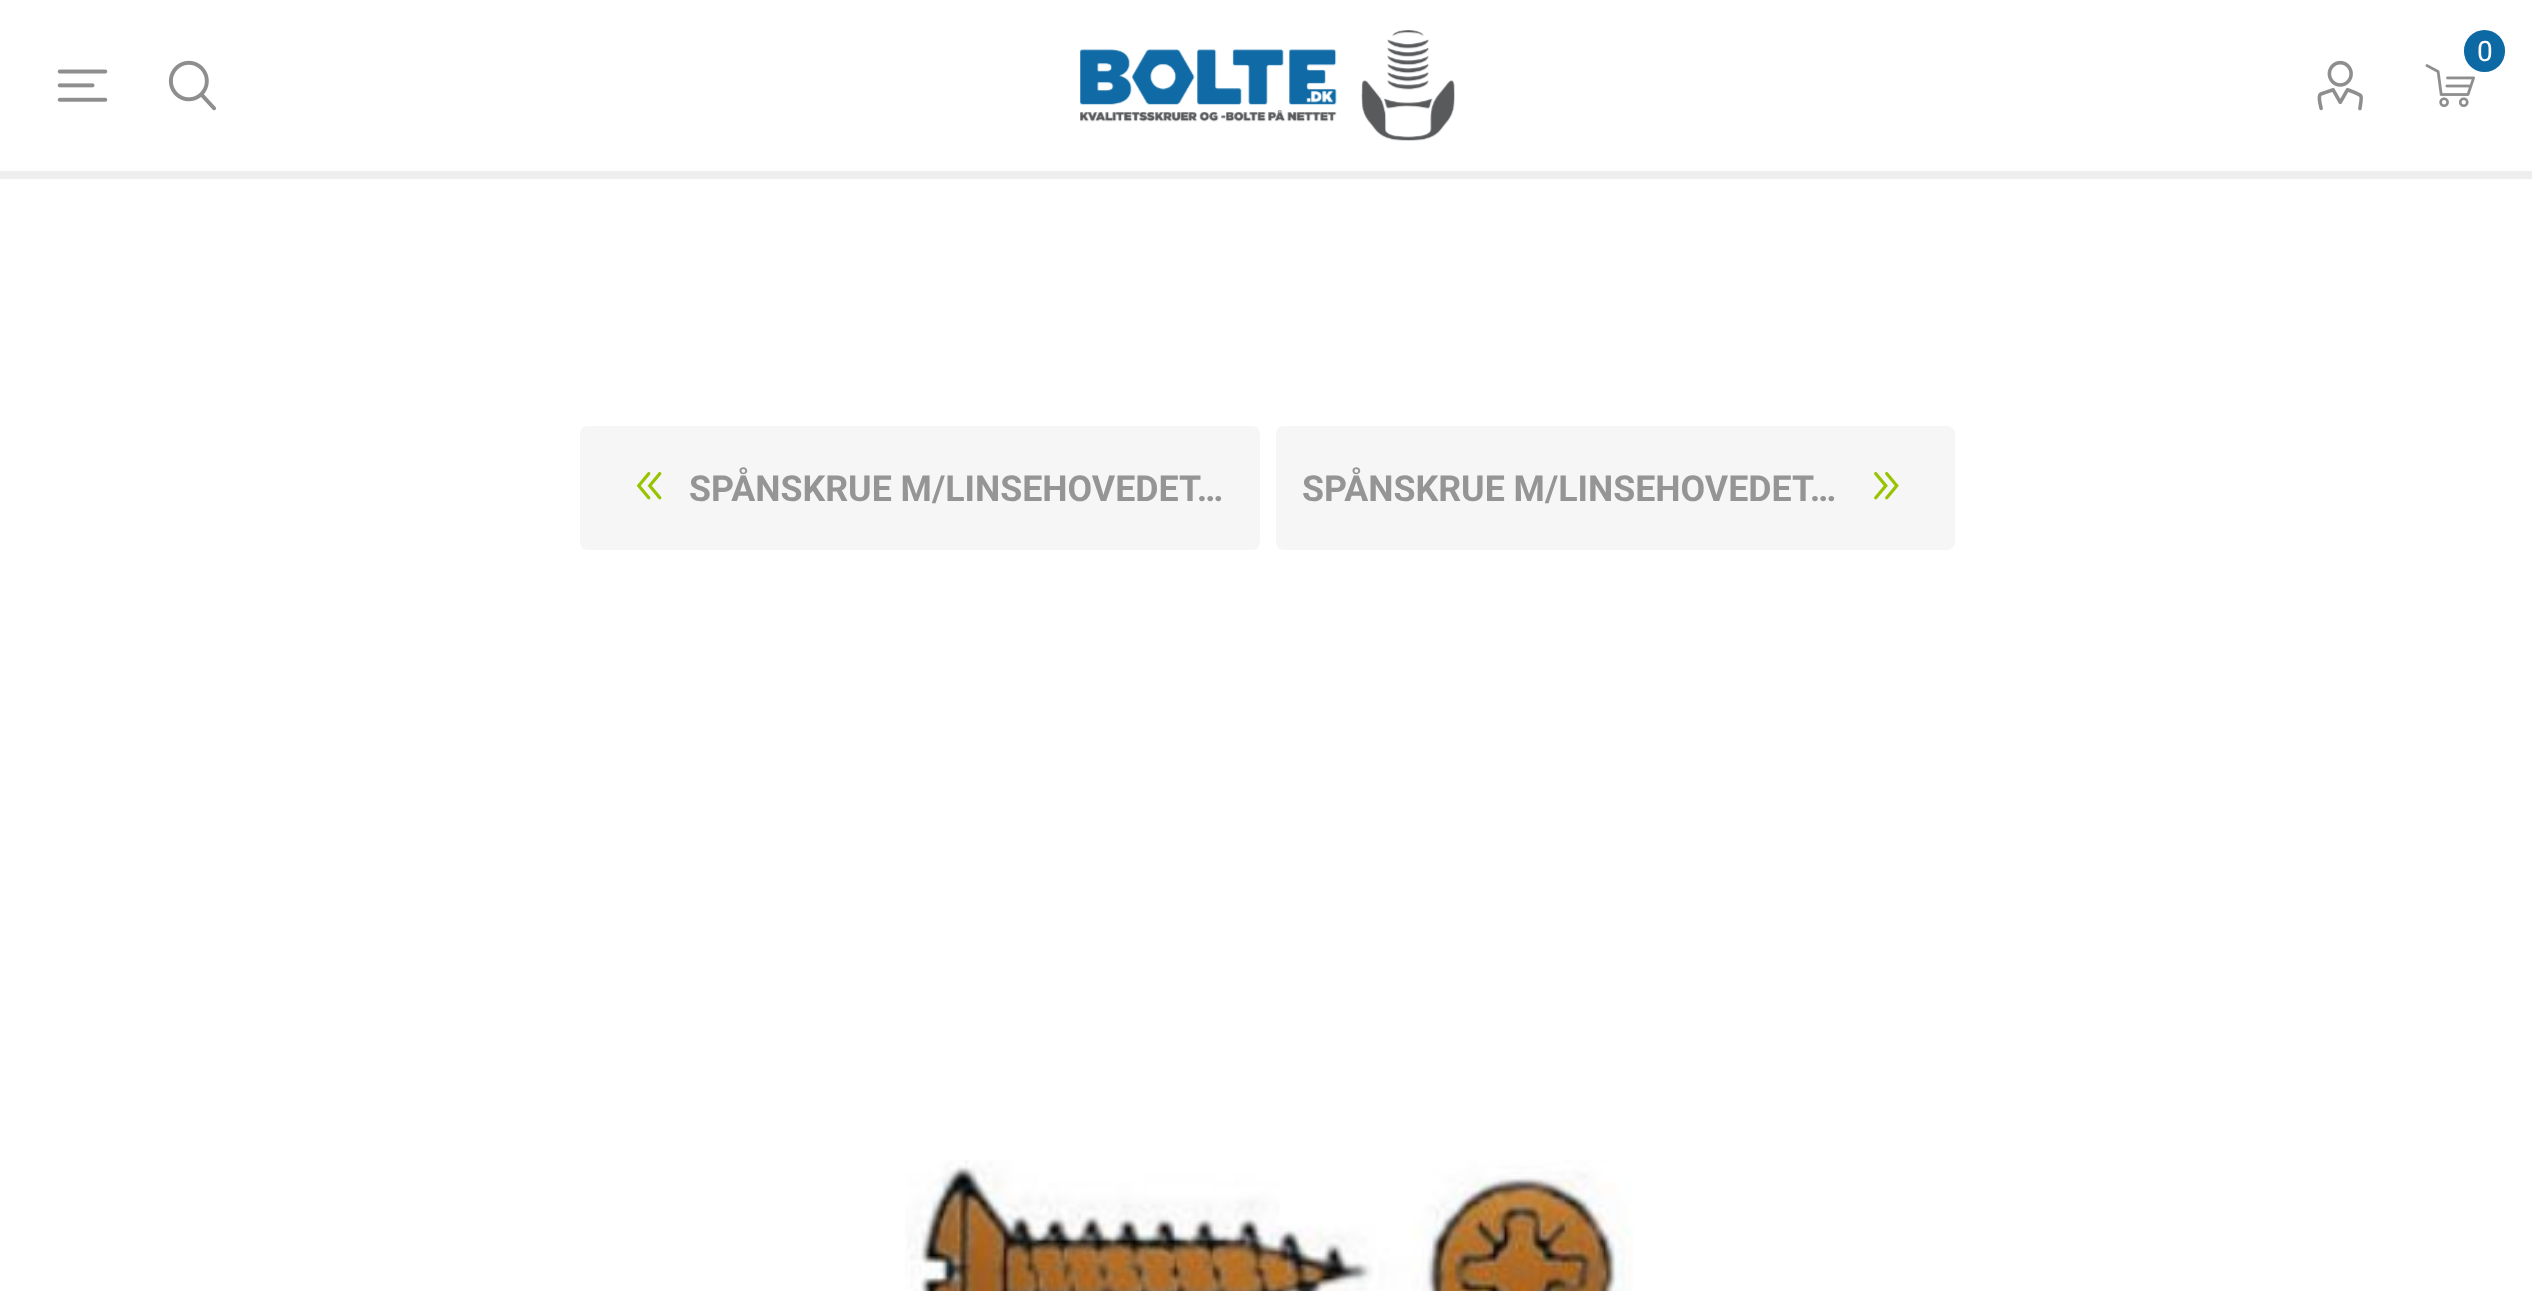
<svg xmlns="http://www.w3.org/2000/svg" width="2532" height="1291">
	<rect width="100%" height="100%" fill="#FFFFFF" />
	<rect x="0" y="171" width="2532" height="8" fill="#EEEEEE" />
	<image x="1080" y="30" width="375" height="111" href="assets/img1.png" />
	<image x="2425" y="64" width="50" height="43" href="assets/img2.png" />
	<rect x="2464" y="30" width="41" height="42" rx="20.5" fill="#0D69A4" />
	<text x="2477" y="61" font-family="Roboto" font-size="28" fill="#FFFFFF">0</text>
	<image x="57" y="69" width="51" height="33" href="assets/img3.png" />
	<image x="168" y="60" width="48" height="51" href="assets/img4.png" />
	<image x="2317" y="60" width="46" height="51" href="assets/img5.png" />
	<rect x="580" y="426" width="680" height="124" rx="8" fill="#F6F6F6" />
	<image x="636" y="472" width="26" height="28" href="assets/img6.png" />
	<text x="689" y="501" font-family="Roboto" font-size="35.75" font-weight="700" fill="#959595">SPÅNSKRUE M/LINSEHOVEDET…</text>
	<rect x="1276" y="426" width="679" height="124" rx="8" fill="#F6F6F6" />
	<text x="1302" y="501" font-family="Roboto" font-size="35.75" font-weight="700" fill="#959595">SPÅNSKRUE M/LINSEHOVEDET…</text>
	<image x="1874" y="472" width="25" height="28" href="assets/img7.png" />
	<image x="905" y="1160" width="728" height="131" href="assets/img8.png" />
</svg>
